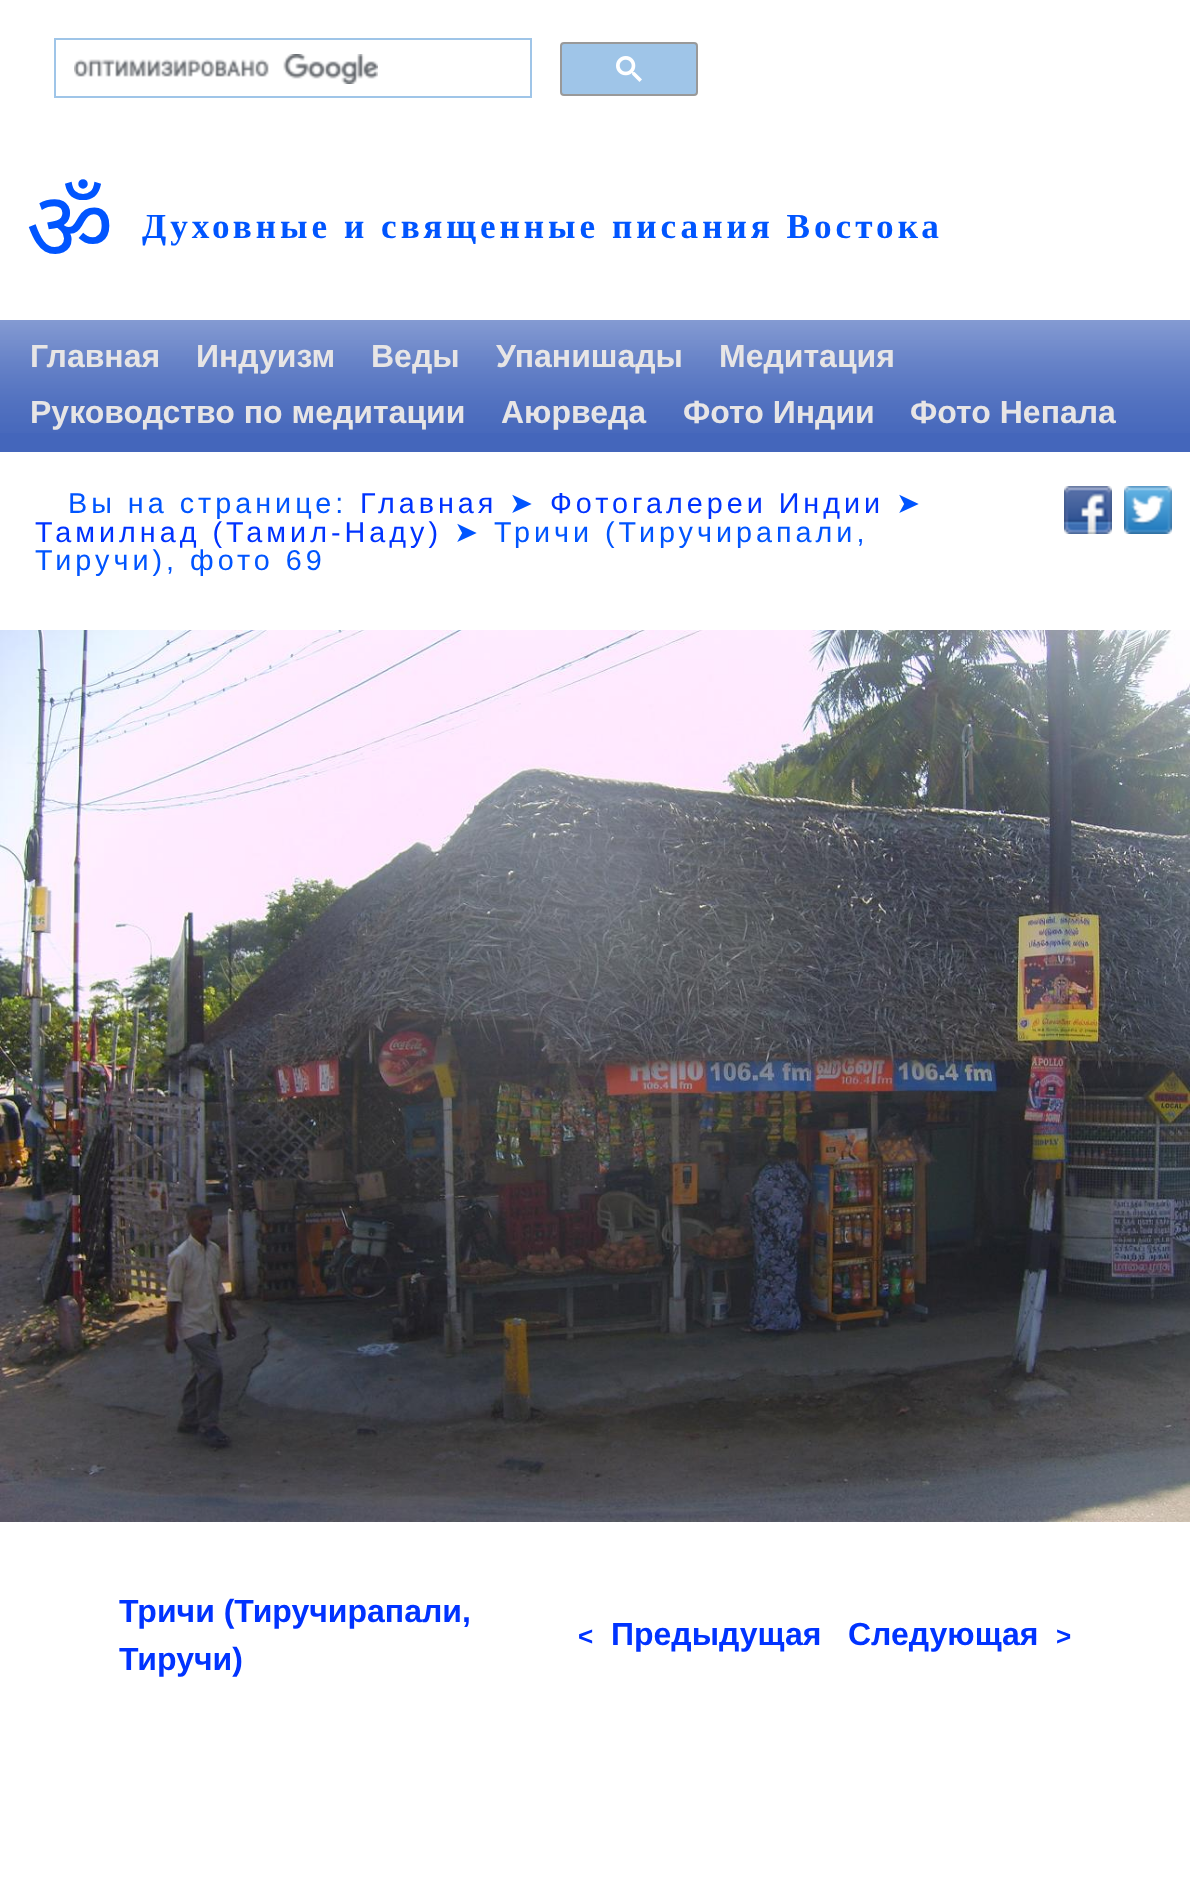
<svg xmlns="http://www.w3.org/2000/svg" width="1190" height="1901">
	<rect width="100%" height="100%" fill="#FFFFFF" />
	<rect x="55" y="39" width="476" height="58" fill="none" stroke="#9FC5E8" stroke-width="2" />
	<image x="74" y="54" width="304" height="30" href="assets/img1.png" />
	<rect x="561" y="43" width="136" height="52" rx="3" fill="#9FC5E8" stroke="#999999" stroke-width="2" />
	<image x="616" y="56" width="26" height="26" href="assets/img2.png" />
	<text x="26" y="260" font-family="Noto Sans" font-size="96" letter-spacing="4" fill="#0055FF">ॐ</text>
	<text x="142" y="238" font-family="Liberation Serif" font-size="35.2" font-weight="700" letter-spacing="4" fill="#0055FF">Духовные и священные писания Востока</text>
	<rect x="0" y="320" width="1190" height="132" fill="#4466BB" />
	<image x="0" y="320" width="1190" height="113" href="assets/img3.png" />
	<g font-family="Liberation Sans" font-size="32" font-weight="700" fill="#E7E5E5">
		<text x="30" y="367">Главная</text>
		<text x="196" y="367">Индуизм</text>
		<text x="371" y="367">Веды</text>
		<text x="496" y="367">Упанишады</text>
		<text x="719" y="367">Медитация</text>
		<text x="30" y="423">Руководство по медитации</text>
		<text x="501" y="423">Аюрведа</text>
		<text x="683" y="423">Фото Индии</text>
		<text x="910" y="423">Фото Непала</text>
	</g>
	<text x="68" y="513" font-family="Liberation Sans" font-size="28.75" letter-spacing="4" fill="#0055FF">Вы на странице:</text>
	<text x="360" y="513" font-family="Liberation Sans" font-size="28.75" letter-spacing="4" fill="#0033FF">Главная</text>
	<text x="509" y="513" font-family="DejaVu Sans" font-size="28.75" letter-spacing="4" fill="#0055FF">➤</text>
	<text x="550" y="513" font-family="Liberation Sans" font-size="28.75" letter-spacing="4" fill="#0033FF">Фотогалереи Индии</text>
	<text x="896" y="513" font-family="DejaVu Sans" font-size="28.75" letter-spacing="4" fill="#0055FF">➤</text>
	<text x="35" y="542" font-family="Liberation Sans" font-size="28.75" letter-spacing="4" fill="#0033FF">Тамилнад (Тамил-Наду)</text>
	<text x="454" y="542" font-family="DejaVu Sans" font-size="28.75" letter-spacing="4" fill="#0055FF">➤</text>
	<g font-family="Liberation Sans" font-size="28.75" letter-spacing="4" fill="#0055FF">
		<text x="494" y="542">Тричи (Тиручирапали,</text>
		<text x="35" y="570">Тиручи), фото 69</text>
	</g>
	<image x="1064" y="486" width="48" height="48" href="assets/img4.png" />
	<image x="1124" y="486" width="48" height="48" href="assets/img5.png" />
	<image x="0" y="630" width="1190" height="892" href="assets/img6.png" />
	<g font-family="Liberation Sans" font-size="32" font-weight="700" fill="#0033FF">
		<text x="119" y="1622">Тричи (Тиручирапали,</text>
		<text x="119" y="1670">Тиручи)</text>
	</g>
	<text x="578" y="1645" font-family="Liberation Sans" font-size="26" font-weight="700" fill="#0033FF">&lt;</text>
	<g font-family="Liberation Sans" font-size="32" font-weight="700" fill="#0033FF">
		<text x="611" y="1645">Предыдущая</text>
		<text x="848" y="1645">Следующая</text>
	</g>
	<text x="1056" y="1645" font-family="Liberation Sans" font-size="26" font-weight="700" fill="#0033FF">&gt;</text>
</svg>
